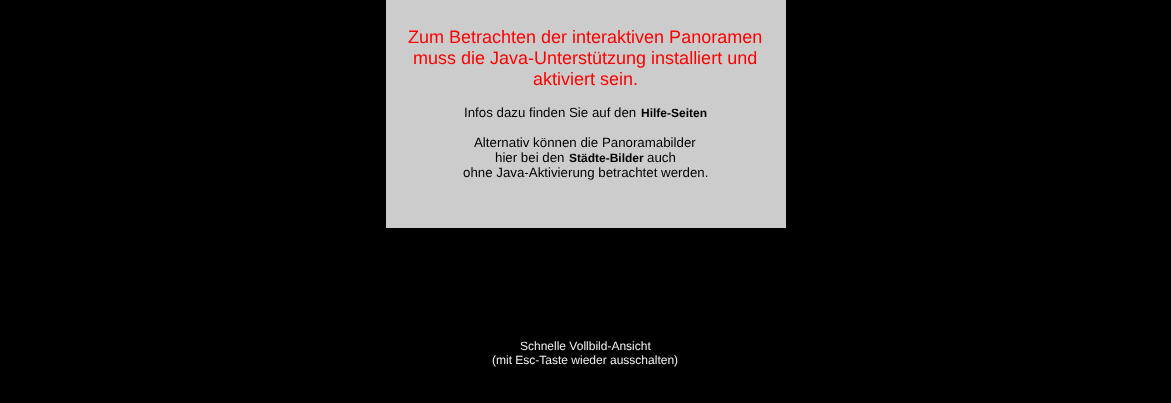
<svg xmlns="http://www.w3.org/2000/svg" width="1171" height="403">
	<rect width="100%" height="100%" fill="#000000" />
	<rect x="386" y="0" width="400" height="228" fill="#CCCCCC" />
	<g font-family="Liberation Sans" font-size="18" fill="#FF0000">
		<text x="408" y="43">Zum Betrachten der interaktiven Panoramen</text>
		<text x="413" y="64">muss die Java-Unterstützung installiert und</text>
		<text x="533" y="85">aktiviert sein.</text>
	</g>
	<text x="464" y="117" font-family="Liberation Sans" font-size="13.3" fill="#000000">Infos dazu finden Sie auf den</text>
	<text x="641" y="117" font-family="Liberation Sans" font-size="12" font-weight="700" fill="#000000">Hilfe-Seiten</text>
	<g font-family="Liberation Sans" font-size="13.3" fill="#000000">
		<text x="474" y="147">Alternativ können die Panoramabilder</text>
		<text x="495" y="162">hier bei den</text>
	</g>
	<text x="569" y="162" font-family="Liberation Sans" font-size="12" font-weight="700" fill="#000000">Städte-Bilder</text>
	<g font-family="Liberation Sans" font-size="13.3" fill="#000000">
		<text x="647" y="162">auch</text>
		<text x="463" y="177">ohne Java-Aktivierung betrachtet werden.</text>
	</g>
	<g font-family="Liberation Sans" font-size="12" fill="#EEEEEE">
		<text x="520" y="350">Schnelle Vollbild-Ansicht</text>
		<text x="492" y="364">(mit Esc-Taste wieder ausschalten)</text>
	</g>
</svg>
